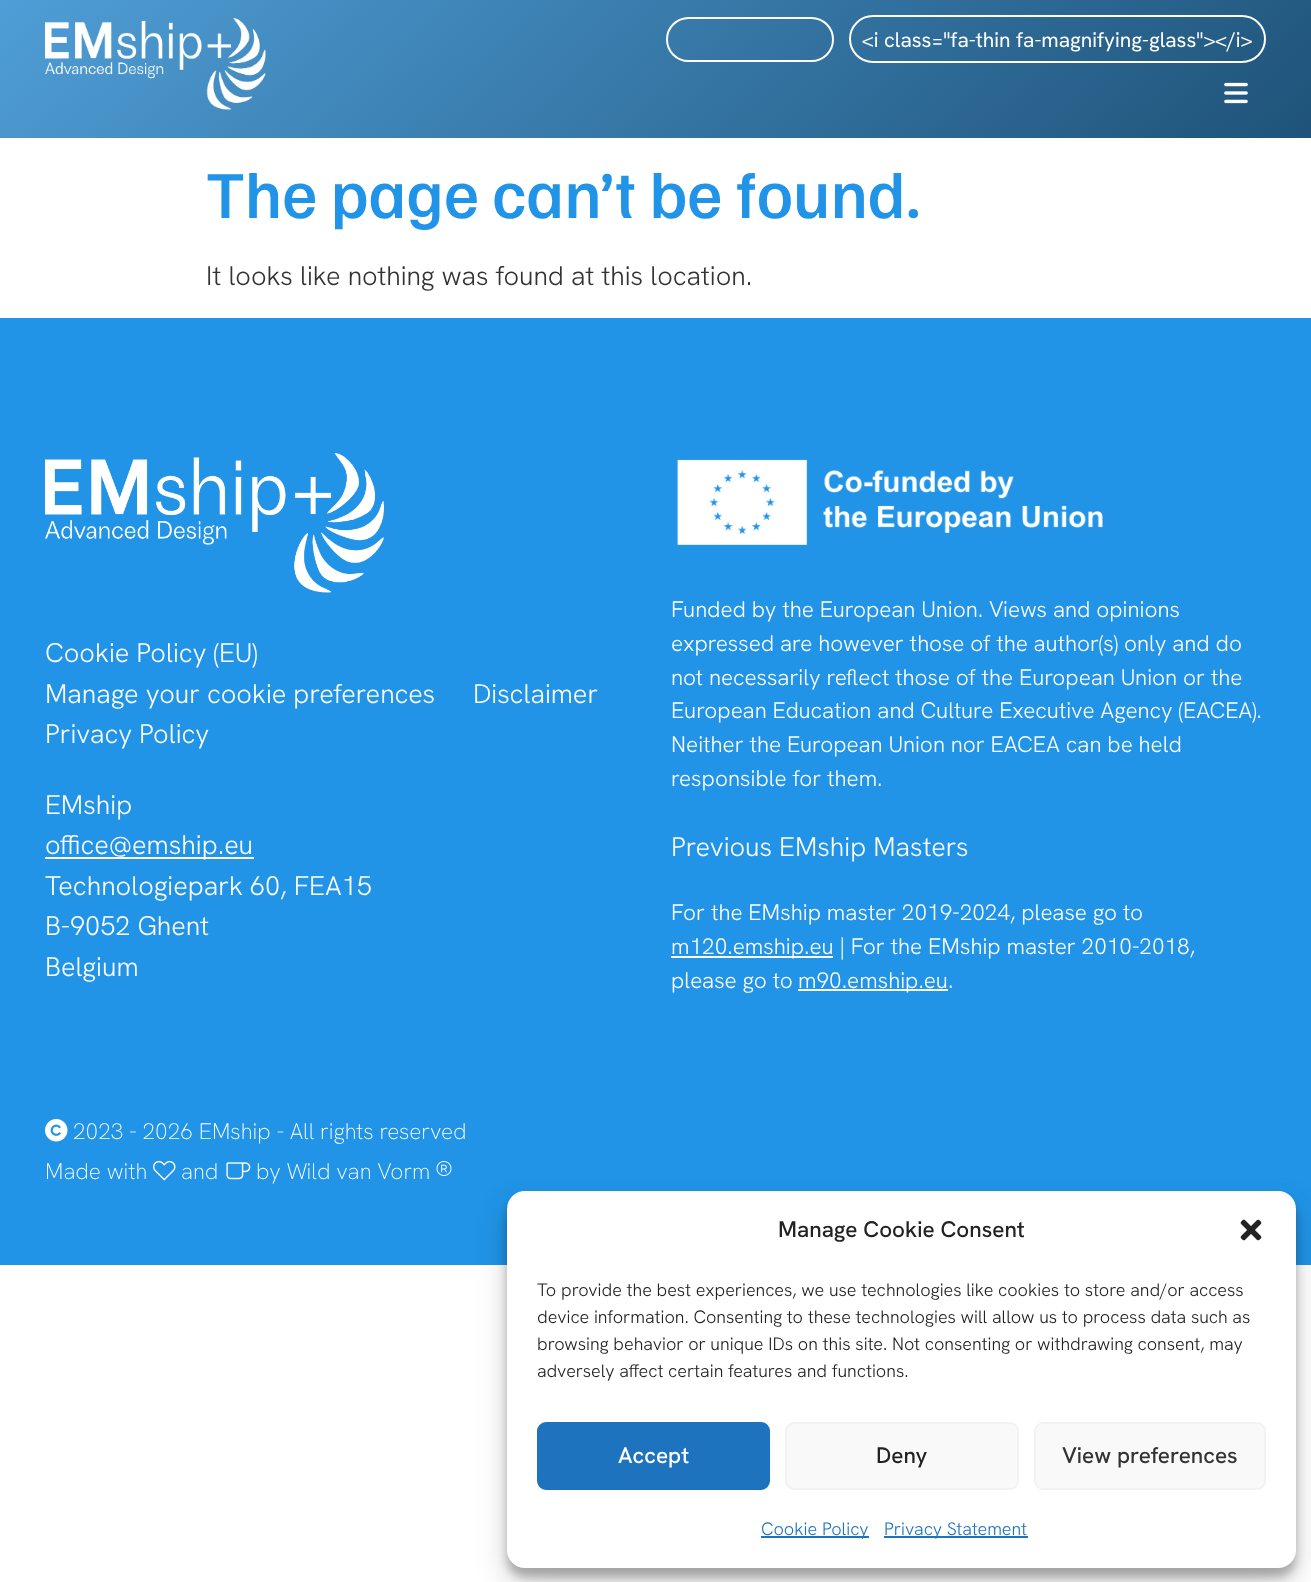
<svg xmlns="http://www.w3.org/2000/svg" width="1311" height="1582">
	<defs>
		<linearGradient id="g1" gradientUnits="userSpaceOnUse" x1="995" y1="433" x2="316" y2="-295"><stop offset="0" stop-color="#1F5379" /><stop offset="1" stop-color="#4F9ED7" /></linearGradient>
	</defs>
	<rect width="100%" height="100%" fill="#FFFFFF" />
	<rect x="0" y="0" width="1311" height="138" fill="url(#g1)" />
	<image x="45" y="18" width="221" height="92" href="assets/img1.png" />
	<rect x="667" y="18" width="166" height="43" rx="21.5" fill="none" stroke="#FFFFFF" stroke-width="2" />
	<rect x="850" y="16" width="415" height="46" rx="23" fill="none" stroke="#FFFFFF" stroke-width="2" />
	<text x="862" y="47" font-family="Hanken Grotesk" font-size="21" fill="#FFFFFF">&lt;i class="fa-thin fa-magnifying-glass"&gt;&lt;/i&gt;</text>
	<image x="1224" y="82" width="24" height="22" href="assets/img2.png" />
	<text x="206" y="218" font-family="Familjen Grotesk" font-size="67.5" font-weight="500" fill="#2194E7">The page can’t be found.</text>
	<text x="206" y="285" font-family="Hanken Grotesk" font-size="27" font-weight="300" fill="#333333">It looks like nothing was found at this location.</text>
	<rect x="0" y="318" width="1311" height="947" fill="#2194E7" />
	<image x="45" y="453" width="339" height="140" href="assets/img3.png" />
	<g font-family="Hanken Grotesk" font-size="27" font-weight="300" fill="#FFFFFF">
		<text x="45" y="662">Cookie Policy (EU)</text>
		<text x="45" y="703">Manage your cookie preferences</text>
		<text x="473" y="703">Disclaimer</text>
		<text x="45" y="743">Privacy Policy</text>
		<text x="45" y="814">EMship</text>
	</g>
	<rect x="45" y="857" width="209" height="2" fill="#FFFFFF" />
	<g font-family="Hanken Grotesk" font-size="27" font-weight="300" fill="#FFFFFF">
		<text x="45" y="854">office@emship.eu</text>
		<text x="45" y="895">Technologiepark 60, FEA15</text>
		<text x="45" y="935">B-9052 Ghent</text>
		<text x="45" y="976">Belgium</text>
	</g>
	<image x="677" y="459" width="426" height="86" href="assets/img4.png" />
	<g font-family="Hanken Grotesk" font-size="22.5" font-weight="300" fill="#FFFFFF">
		<text x="671" y="617">Funded by the European Union. Views and opinions</text>
		<text x="671" y="651">expressed are however those of the author(s) only and do</text>
		<text x="671" y="685">not necessarily reflect those of the European Union or the</text>
		<text x="671" y="718">European Education and Culture Executive Agency (EACEA).</text>
		<text x="671" y="752">Neither the European Union nor EACEA can be held</text>
		<text x="671" y="786">responsible for them.</text>
	</g>
	<text x="671" y="856" font-family="Hanken Grotesk" font-size="27" font-weight="300" fill="#FFFFFF">Previous EMship Masters</text>
	<text x="671" y="920" font-family="Hanken Grotesk" font-size="22.5" font-weight="300" fill="#FFFFFF">For the EMship master 2019-2024, please go to</text>
	<rect x="671" y="956" width="162" height="2" fill="#FFFFFF" />
	<g font-family="Hanken Grotesk" font-size="22.5" font-weight="300" fill="#FFFFFF">
		<text x="671" y="954">m120.emship.eu | For the EMship master 2010-2018,</text>
		<text x="671" y="988">please go to</text>
	</g>
	<rect x="798" y="989" width="150" height="2" fill="#FFFFFF" />
	<text x="798" y="988" font-family="Hanken Grotesk" font-size="22.5" font-weight="300" fill="#FFFFFF">m90.emship.eu.</text>
	<image x="45" y="1119" width="23" height="23" href="assets/img5.png" />
	<g font-family="Hanken Grotesk" font-size="22.5" font-weight="200" fill="#FFFFFF">
		<text x="73" y="1139">2023 - 2026 EMship - All rights reserved</text>
		<text x="45" y="1179">Made with</text>
	</g>
	<image x="153" y="1160" width="23" height="21" href="assets/img6.png" />
	<text x="181" y="1179" font-family="Hanken Grotesk" font-size="22.5" font-weight="200" fill="#FFFFFF">and</text>
	<image x="226" y="1162" width="25" height="18" href="assets/img7.png" />
	<text x="256" y="1179" font-family="Hanken Grotesk" font-size="22.5" font-weight="200" fill="#FFFFFF">by Wild van Vorm</text>
	<image x="436" y="1161" width="16" height="15" href="assets/img8.png" />
	<rect x="507" y="1200" width="789" height="377" rx="18" fill="#000000" fill-opacity="0.23" filter="blur(4.5px)" />
	<rect x="507" y="1206" width="789" height="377" rx="18" fill="#000000" fill-opacity="0.19" filter="blur(15px)" />
	<rect x="507" y="1191" width="789" height="377" rx="18" fill="#FFFFFF" />
	<text x="778" y="1237" font-family="Hanken Grotesk" font-size="22.5" font-weight="500" fill="#222222">Manage Cookie Consent</text>
	<image x="1240" y="1219" width="22" height="22" href="assets/img9.png" />
	<g font-family="Hanken Grotesk" font-size="18" font-weight="300" fill="#222222">
		<text x="537" y="1296">To provide the best experiences, we use technologies like cookies to store and/or access</text>
		<text x="537" y="1323">device information. Consenting to these technologies will allow us to process data such as</text>
		<text x="537" y="1350">browsing behavior or unique IDs on this site. Not consenting or withdrawing consent, may</text>
		<text x="537" y="1377">adversely affect certain features and functions.</text>
	</g>
	<rect x="538" y="1423" width="231" height="66" rx="8" fill="#1E73BE" stroke="#1E73BE" stroke-width="2" />
	<text x="618" y="1463" font-family="Hanken Grotesk" font-size="22.5" font-weight="500" fill="#FFFFFF">Accept</text>
	<rect x="786" y="1423" width="232" height="66" rx="8" fill="#F9F9F9" stroke="#F2F2F2" stroke-width="2" />
	<text x="876" y="1463" font-family="Hanken Grotesk" font-size="22.5" font-weight="500" fill="#222222">Deny</text>
	<rect x="1035" y="1423" width="230" height="66" rx="8" fill="#F9F9F9" stroke="#F2F2F2" stroke-width="2" />
	<text x="1062" y="1463" font-family="Hanken Grotesk" font-size="22.5" font-weight="500" fill="#333333">View preferences</text>
	<rect x="761" y="1536" width="108" height="2" fill="#1E73BE" />
	<text x="761" y="1535" font-family="Hanken Grotesk" font-size="18" font-weight="300" fill="#1E73BE">Cookie Policy</text>
	<rect x="884" y="1536" width="144" height="2" fill="#1E73BE" />
	<text x="884" y="1535" font-family="Hanken Grotesk" font-size="18" font-weight="300" fill="#1E73BE">Privacy Statement</text>
</svg>
